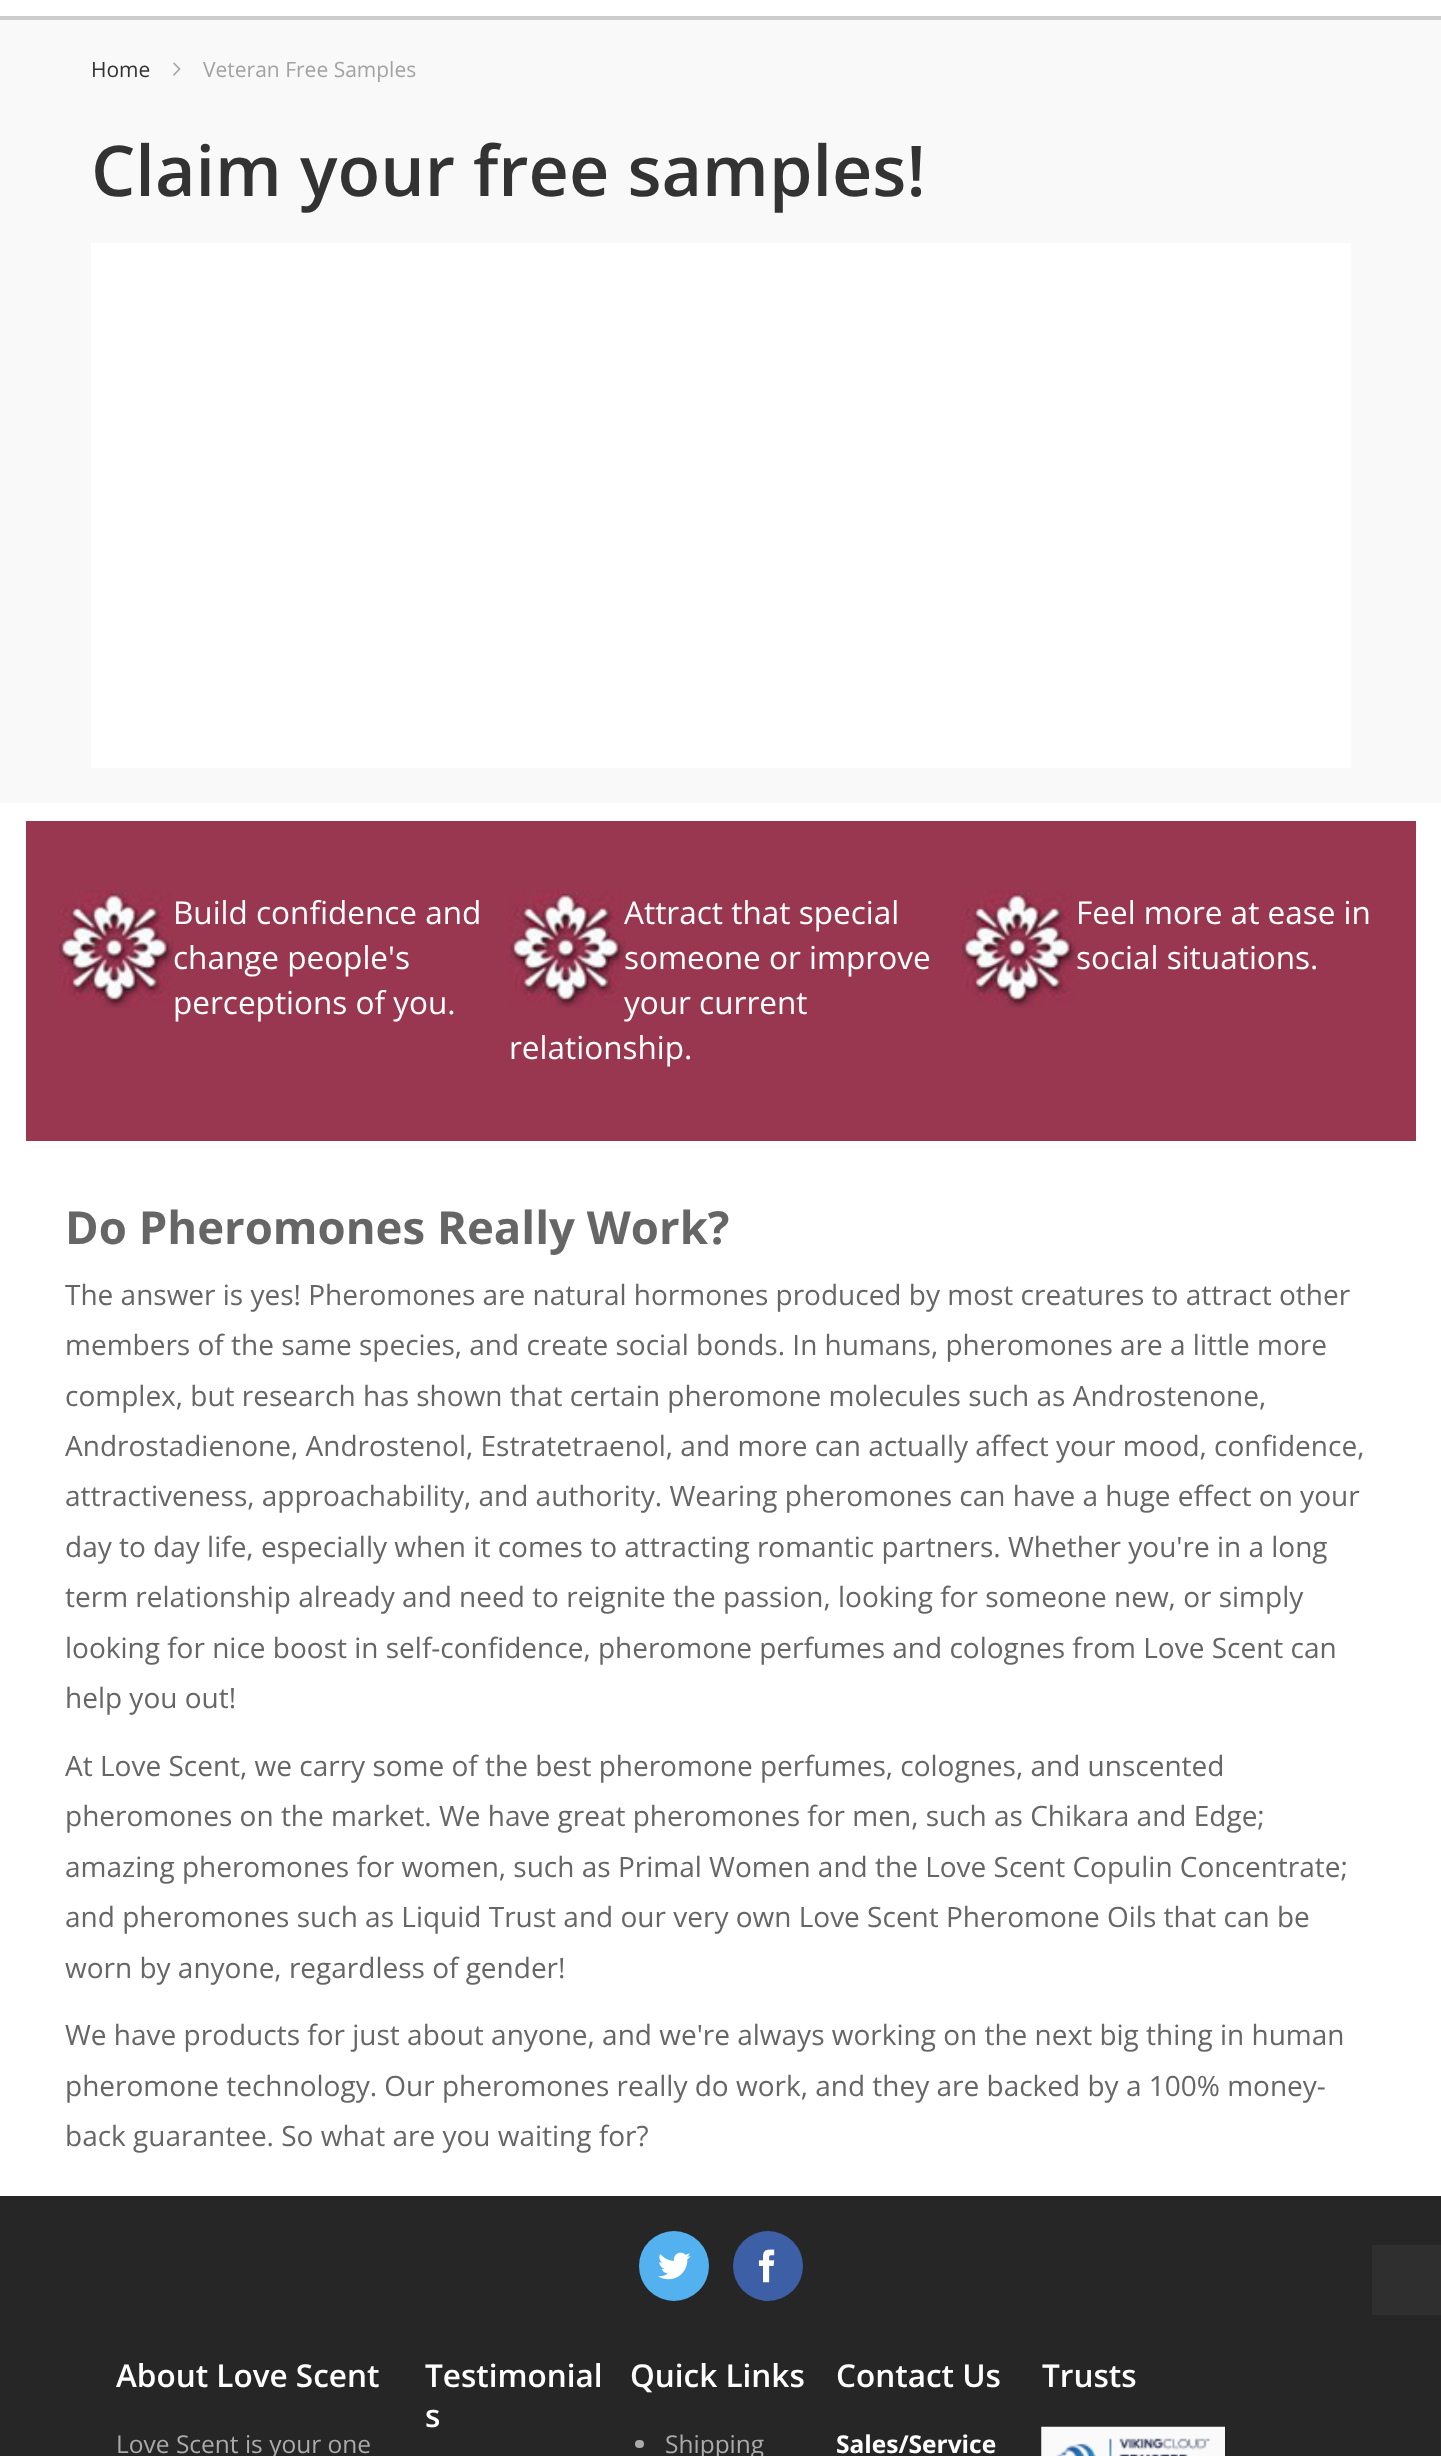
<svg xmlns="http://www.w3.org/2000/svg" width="1441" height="2456">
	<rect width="100%" height="100%" fill="#F9F9F9" />
	<rect x="0" y="0" width="1441" height="16" fill="#FFFFFF" />
	<rect x="0" y="16" width="1441" height="4" fill="#CCCCCC" />
	<text x="91" y="77" font-family="Open Sans" font-size="21" fill="#333333">Home</text>
	<image x="173" y="62" width="8" height="14" href="assets/img1.png" />
	<text x="203" y="77" font-family="Open Sans" font-size="21" fill="#A3A3A3">Veteran Free Samples</text>
	<text x="91" y="196" font-family="Open Sans" font-size="70" font-weight="600" fill="#333333">Claim your free samples!</text>
	<rect x="91" y="243" width="1260" height="525" fill="#FFFFFF" />
	<rect x="0" y="2196" width="1441" height="260" fill="#262626" />
	<rect x="0" y="803" width="1441" height="1393" fill="#FFFFFF" />
	<rect x="26" y="821" width="1390" height="320" fill="#993650" />
	<image x="58" y="890" width="115" height="118" href="assets/img2.png" />
	<g font-family="Open Sans" font-size="31.5" fill="#FFFFFF">
		<text x="173" y="924">Build confidence and</text>
		<text x="173" y="969">change people's</text>
		<text x="173" y="1014">perceptions of you.</text>
	</g>
	<image x="509" y="890" width="116" height="118" href="assets/img3.png" />
	<g font-family="Open Sans" font-size="31.5" fill="#FFFFFF">
		<text x="624" y="924">Attract that special</text>
		<text x="624" y="969">someone or improve</text>
		<text x="624" y="1014">your current</text>
		<text x="509" y="1059">relationship.</text>
	</g>
	<image x="961" y="890" width="115" height="118" href="assets/img2.png" />
	<g font-family="Open Sans" font-size="31.5" fill="#FFFFFF">
		<text x="1076" y="924">Feel more at ease in</text>
		<text x="1076" y="969">social situations.</text>
	</g>
	<text x="65" y="1244" font-family="Open Sans" font-size="45.5" font-weight="700" fill="#666666">Do Pheromones Really Work?</text>
	<g font-family="Open Sans" font-size="28" fill="#666666">
		<text x="65" y="1305">The answer is yes! Pheromones are natural hormones produced by most creatures to attract other</text>
		<text x="65" y="1355">members of the same species, and create social bonds. In humans, pheromones are a little more</text>
		<text x="65" y="1406">complex, but research has shown that certain pheromone molecules such as Androstenone,</text>
		<text x="65" y="1456">Androstadienone, Androstenol, Estratetraenol, and more can actually affect your mood, confidence,</text>
		<text x="65" y="1506">attractiveness, approachability, and authority. Wearing pheromones can have a huge effect on your</text>
		<text x="65" y="1557">day to day life, especially when it comes to attracting romantic partners. Whether you're in a long</text>
		<text x="65" y="1607">term relationship already and need to reignite the passion, looking for someone new, or simply</text>
		<text x="65" y="1658">looking for nice boost in self-confidence, pheromone perfumes and colognes from Love Scent can</text>
		<text x="65" y="1708">help you out!</text>
		<text x="65" y="1776">At Love Scent, we carry some of the best pheromone perfumes, colognes, and unscented</text>
		<text x="65" y="1826">pheromones on the market. We have great pheromones for men, such as Chikara and Edge;</text>
		<text x="65" y="1877">amazing pheromones for women, such as Primal Women and the Love Scent Copulin Concentrate;</text>
		<text x="65" y="1927">and pheromones such as Liquid Trust and our very own Love Scent Pheromone Oils that can be</text>
		<text x="65" y="1978">worn by anyone, regardless of gender!</text>
		<text x="65" y="2045">We have products for just about anyone, and we're always working on the next big thing in human</text>
		<text x="65" y="2096">pheromone technology. Our pheromones really do work, and they are backed by a 100% money-</text>
		<text x="65" y="2146">back guarantee. So what are you waiting for?</text>
	</g>
	<rect x="1372" y="2245" width="69" height="70" fill="#2F2F2F" />
	<circle cx="674" cy="2266" r="35" fill="#53B1F0" />
	<image x="658" y="2252" width="33" height="28" href="assets/img4.png" />
	<circle cx="768" cy="2266" r="35" fill="#3D5FA6" />
	<image x="758" y="2249" width="17" height="34" href="assets/img5.png" />
	<text x="116" y="2387" font-family="Open Sans" font-size="31.5" font-weight="600" fill="#FFFFFF">About Love Scent</text>
	<text x="116" y="2453" font-family="Open Sans" font-size="24.5" fill="#AAAAAA">Love Scent is your one</text>
	<g font-family="Open Sans" font-size="31.5" font-weight="600" fill="#FFFFFF">
		<text x="425" y="2387">Testimonial</text>
		<text x="425" y="2427">s</text>
		<text x="630" y="2387">Quick Links</text>
	</g>
	<rect x="635" y="2440" width="9" height="8" rx="4" fill="#AAAAAA" />
	<text x="665" y="2453" font-family="Open Sans" font-size="24.5" fill="#AAAAAA">Shipping</text>
	<text x="836" y="2387" font-family="Open Sans" font-size="31.5" font-weight="600" fill="#FFFFFF">Contact Us</text>
	<text x="836" y="2453" font-family="Open Sans" font-size="24.5" font-weight="700" fill="#FFFFFF">Sales/Service</text>
	<text x="1042" y="2387" font-family="Open Sans" font-size="31.5" font-weight="600" fill="#FFFFFF">Trusts</text>
	<image x="1041" y="2426" width="184" height="30" href="assets/img6.png" />
</svg>
